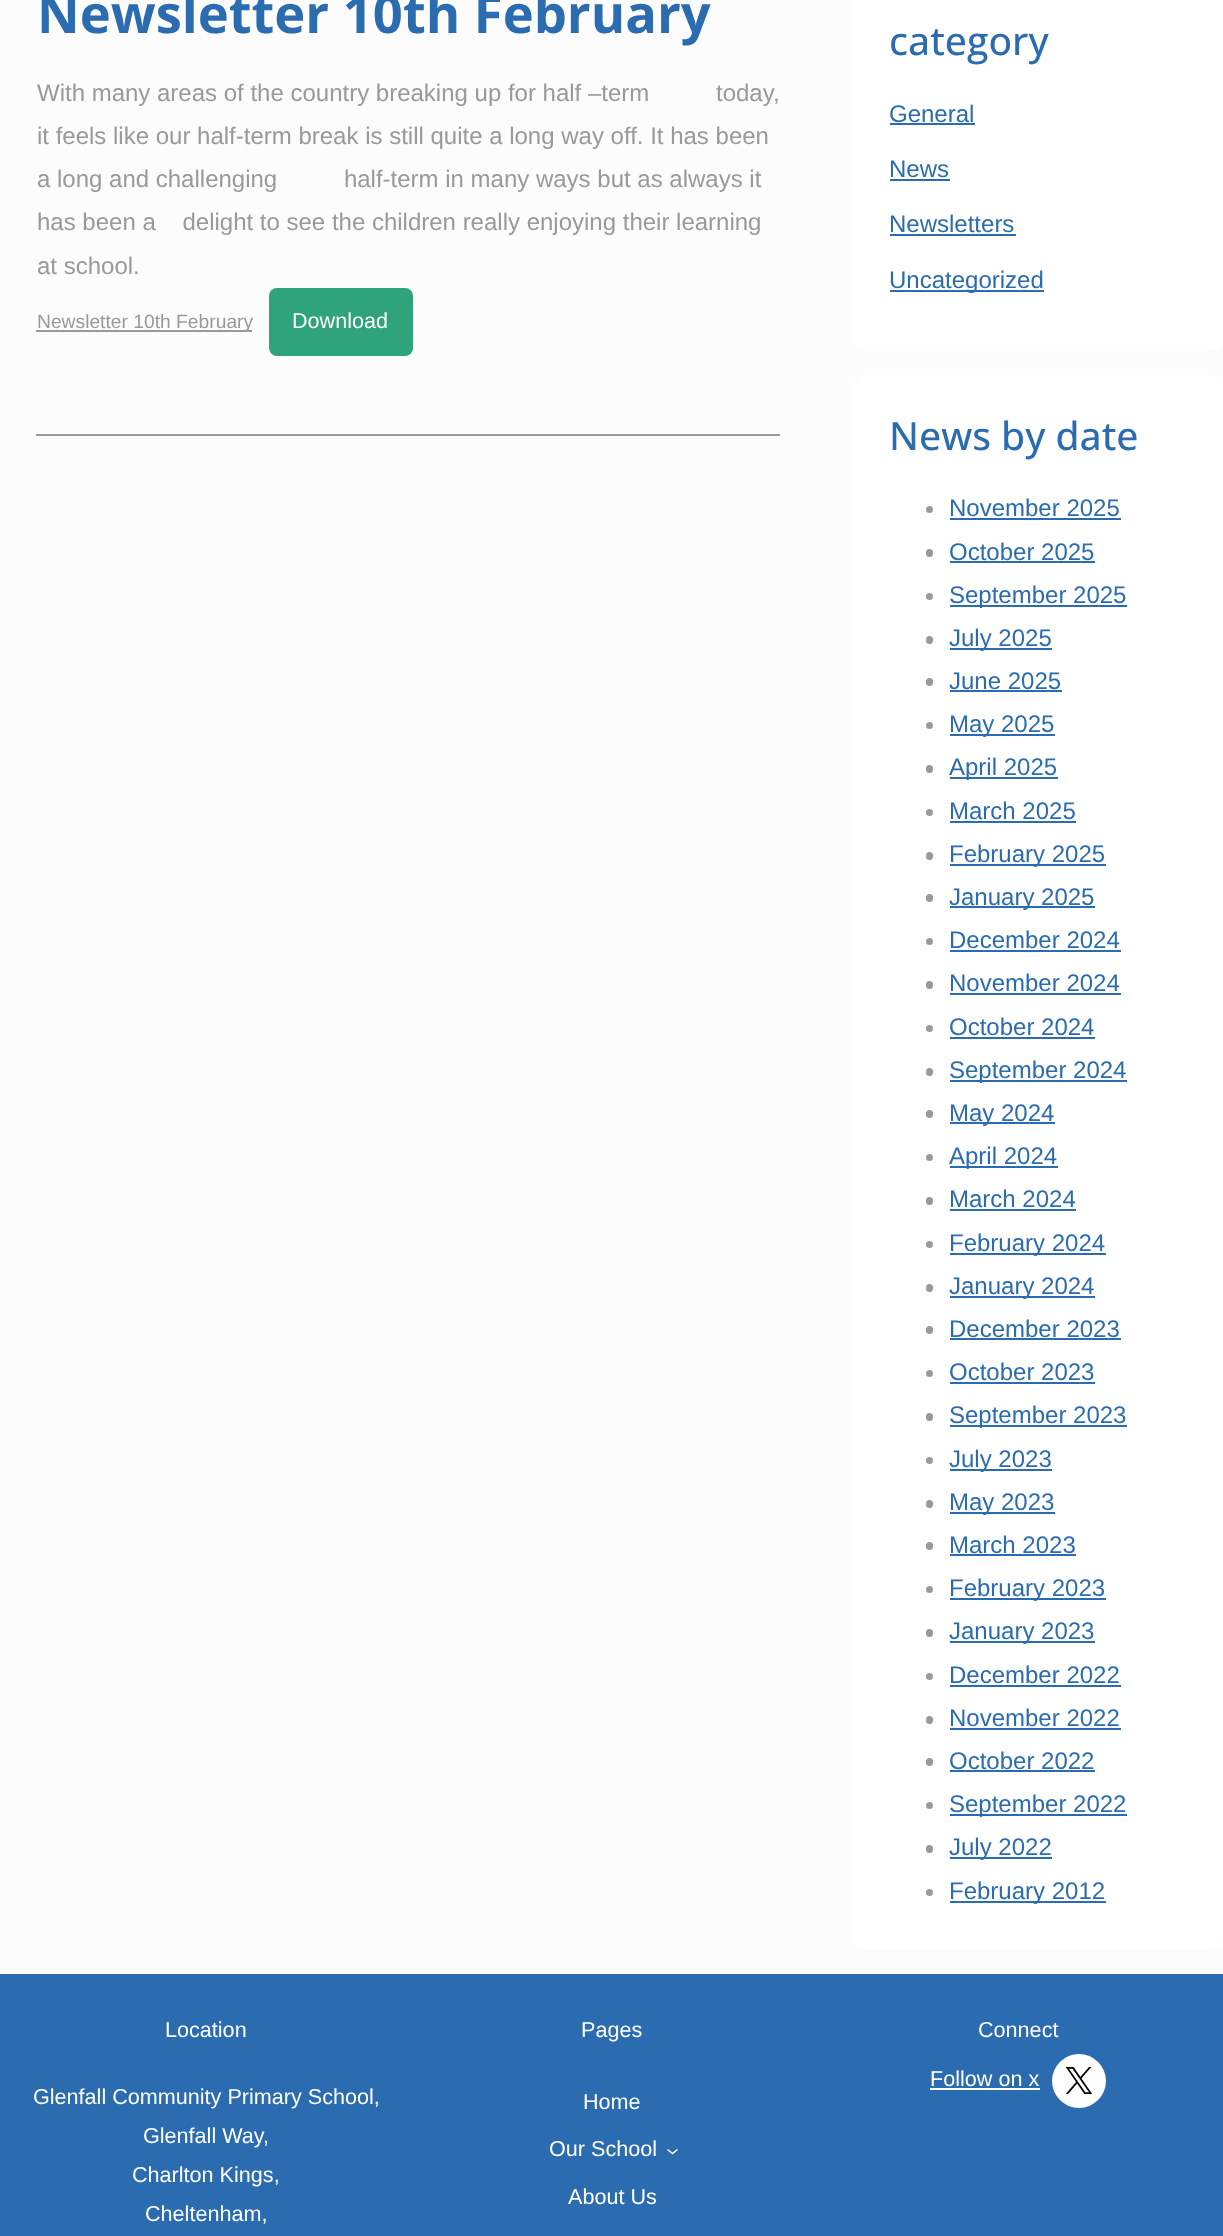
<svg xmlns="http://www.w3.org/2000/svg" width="1223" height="2236">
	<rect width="100%" height="100%" fill="#FCFCFC" />
	<text x="37" y="33" font-family="Open Sans" font-size="52.5" font-weight="700" fill="#2B6BAF">Newsletter 10th February</text>
	<g font-family="Liberation Sans" font-size="24" fill="#999999">
		<text x="37" y="101" xml:space="preserve">With many areas of the country breaking up for half –term          today,</text>
		<text x="37" y="144">it feels like our half-term break is still quite a long way off. It has been</text>
		<text x="37" y="187" xml:space="preserve">a long and challenging          half-term in many ways but as always it</text>
		<text x="37" y="230" xml:space="preserve">has been a    delight to see the children really enjoying their learning</text>
		<text x="37" y="274">at school.</text>
	</g>
	<rect x="36" y="330" width="216" height="2" fill="#999999" />
	<text x="37" y="328" font-family="Liberation Sans" font-size="19.25" fill="#999999">Newsletter 10th February</text>
	<rect x="269" y="288" width="144" height="68" rx="8" fill="#2EA37C" />
	<text x="292" y="328" font-family="Liberation Sans" font-size="21.6" fill="#FFFFFF">Download</text>
	<rect x="36" y="434" width="744" height="2" fill="#999999" />
	<rect x="852" y="-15" width="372" height="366" rx="15" fill="#FFFFFF" />
	<text x="889" y="55" font-family="Open Sans" font-size="39" font-weight="500" fill="#2B6BAF">category</text>
	<text x="889" y="122" font-family="Liberation Sans" font-size="24" fill="#2B6BAF">General</text>
	<rect x="890" y="123" width="85" height="2" fill="#2B6BAF" />
	<text x="889" y="177" font-family="Liberation Sans" font-size="24" fill="#2B6BAF">News</text>
	<rect x="890" y="179" width="60" height="2" fill="#2B6BAF" />
	<text x="889" y="232" font-family="Liberation Sans" font-size="24" fill="#2B6BAF">Newsletters</text>
	<rect x="890" y="234" width="126" height="2" fill="#2B6BAF" />
	<rect x="890" y="290" width="154" height="2" fill="#2B6BAF" />
	<text x="889" y="288" font-family="Liberation Sans" font-size="24" fill="#2B6BAF">Uncategorized</text>
	<rect x="852" y="375" width="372" height="1575" rx="15" fill="#FFFFFF" />
	<text x="889" y="450" font-family="Open Sans" font-size="39" font-weight="500" fill="#2B6BAF">News by date</text>
	<circle cx="929.5" cy="509.5" r="3.5" fill="#999999" />
	<text x="949" y="516" font-family="Liberation Sans" font-size="24" fill="#2B6BAF">November 2025</text>
	<rect x="950" y="518" width="171" height="2" fill="#2B6BAF" />
	<rect x="926" y="549" width="7" height="8" rx="3.5" fill="#999999" />
	<text x="949" y="560" font-family="Liberation Sans" font-size="24" fill="#2B6BAF">October 2025</text>
	<rect x="950" y="561" width="145" height="2" fill="#2B6BAF" />
	<circle cx="929.5" cy="596.5" r="3.5" fill="#999999" />
	<rect x="950" y="605" width="177" height="2" fill="#2B6BAF" />
	<text x="949" y="603" font-family="Liberation Sans" font-size="24" fill="#2B6BAF">September 2025</text>
	<rect x="926" y="636" width="7" height="8" rx="3.5" fill="#999999" />
	<rect x="950" y="648" width="102" height="2" fill="#2B6BAF" />
	<text x="949" y="646" font-family="Liberation Sans" font-size="24" fill="#2B6BAF">July 2025</text>
	<rect x="926" y="678" width="7" height="8" rx="3.5" fill="#999999" />
	<text x="949" y="689" font-family="Liberation Sans" font-size="24" fill="#2B6BAF">June 2025</text>
	<rect x="950" y="690" width="112" height="2" fill="#2B6BAF" />
	<circle cx="929.5" cy="725.5" r="3.5" fill="#999999" />
	<rect x="950" y="734" width="105" height="2" fill="#2B6BAF" />
	<text x="949" y="732" font-family="Liberation Sans" font-size="24" fill="#2B6BAF">May 2025</text>
	<rect x="926" y="765" width="7" height="8" rx="3.5" fill="#999999" />
	<rect x="950" y="777" width="108" height="2" fill="#2B6BAF" />
	<text x="949" y="775" font-family="Liberation Sans" font-size="24" fill="#2B6BAF">April 2025</text>
	<circle cx="929.5" cy="812.5" r="3.5" fill="#999999" />
	<text x="949" y="819" font-family="Liberation Sans" font-size="24" fill="#2B6BAF">March 2025</text>
	<rect x="950" y="821" width="126" height="2" fill="#2B6BAF" />
	<rect x="926" y="852" width="7" height="8" rx="3.5" fill="#999999" />
	<rect x="950" y="864" width="156" height="2" fill="#2B6BAF" />
	<text x="949" y="862" font-family="Liberation Sans" font-size="24" fill="#2B6BAF">February 2025</text>
	<rect x="926" y="894" width="7" height="8" rx="3.5" fill="#999999" />
	<rect x="950" y="906" width="145" height="2" fill="#2B6BAF" />
	<text x="949" y="905" font-family="Liberation Sans" font-size="24" fill="#2B6BAF">January 2025</text>
	<circle cx="929.5" cy="941.5" r="3.5" fill="#999999" />
	<text x="949" y="948" font-family="Liberation Sans" font-size="24" fill="#2B6BAF">December 2024</text>
	<rect x="950" y="950" width="171" height="2" fill="#2B6BAF" />
	<rect x="926" y="981" width="7" height="8" rx="3.5" fill="#999999" />
	<text x="949" y="991" font-family="Liberation Sans" font-size="24" fill="#2B6BAF">November 2024</text>
	<rect x="950" y="993" width="171" height="2" fill="#2B6BAF" />
	<circle cx="929.5" cy="1028.5" r="3.5" fill="#999999" />
	<text x="949" y="1035" font-family="Liberation Sans" font-size="24" fill="#2B6BAF">October 2024</text>
	<rect x="950" y="1037" width="145" height="2" fill="#2B6BAF" />
	<rect x="926" y="1068" width="7" height="8" rx="3.5" fill="#999999" />
	<rect x="950" y="1080" width="177" height="2" fill="#2B6BAF" />
	<text x="949" y="1078" font-family="Liberation Sans" font-size="24" fill="#2B6BAF">September 2024</text>
	<rect x="926" y="1110" width="7" height="8" rx="3.5" fill="#999999" />
	<rect x="950" y="1122" width="105" height="2" fill="#2B6BAF" />
	<text x="949" y="1121" font-family="Liberation Sans" font-size="24" fill="#2B6BAF">May 2024</text>
	<circle cx="929.5" cy="1157.5" r="3.5" fill="#999999" />
	<rect x="950" y="1166" width="108" height="2" fill="#2B6BAF" />
	<text x="949" y="1164" font-family="Liberation Sans" font-size="24" fill="#2B6BAF">April 2024</text>
	<rect x="926" y="1197" width="7" height="8" rx="3.5" fill="#999999" />
	<text x="949" y="1207" font-family="Liberation Sans" font-size="24" fill="#2B6BAF">March 2024</text>
	<rect x="950" y="1209" width="126" height="2" fill="#2B6BAF" />
	<circle cx="929.5" cy="1244.5" r="3.5" fill="#999999" />
	<rect x="950" y="1253" width="156" height="2" fill="#2B6BAF" />
	<text x="949" y="1251" font-family="Liberation Sans" font-size="24" fill="#2B6BAF">February 2024</text>
	<rect x="926" y="1284" width="7" height="8" rx="3.5" fill="#999999" />
	<rect x="950" y="1296" width="145" height="2" fill="#2B6BAF" />
	<text x="949" y="1294" font-family="Liberation Sans" font-size="24" fill="#2B6BAF">January 2024</text>
	<rect x="926" y="1326" width="7" height="8" rx="3.5" fill="#999999" />
	<text x="949" y="1337" font-family="Liberation Sans" font-size="24" fill="#2B6BAF">December 2023</text>
	<rect x="950" y="1338" width="171" height="2" fill="#2B6BAF" />
	<circle cx="929.5" cy="1373.5" r="3.5" fill="#999999" />
	<text x="949" y="1380" font-family="Liberation Sans" font-size="24" fill="#2B6BAF">October 2023</text>
	<rect x="950" y="1382" width="145" height="2" fill="#2B6BAF" />
	<rect x="926" y="1413" width="7" height="8" rx="3.5" fill="#999999" />
	<rect x="950" y="1425" width="177" height="2" fill="#2B6BAF" />
	<text x="949" y="1423" font-family="Liberation Sans" font-size="24" fill="#2B6BAF">September 2023</text>
	<circle cx="929.5" cy="1460.5" r="3.5" fill="#999999" />
	<rect x="950" y="1469" width="102" height="2" fill="#2B6BAF" />
	<text x="949" y="1467" font-family="Liberation Sans" font-size="24" fill="#2B6BAF">July 2023</text>
	<rect x="926" y="1500" width="7" height="8" rx="3.5" fill="#999999" />
	<rect x="950" y="1512" width="105" height="2" fill="#2B6BAF" />
	<text x="949" y="1510" font-family="Liberation Sans" font-size="24" fill="#2B6BAF">May 2023</text>
	<rect x="926" y="1542" width="7" height="8" rx="3.5" fill="#999999" />
	<text x="949" y="1553" font-family="Liberation Sans" font-size="24" fill="#2B6BAF">March 2023</text>
	<rect x="950" y="1554" width="126" height="2" fill="#2B6BAF" />
	<circle cx="929.5" cy="1589.5" r="3.5" fill="#999999" />
	<rect x="950" y="1598" width="156" height="2" fill="#2B6BAF" />
	<text x="949" y="1596" font-family="Liberation Sans" font-size="24" fill="#2B6BAF">February 2023</text>
	<rect x="926" y="1629" width="7" height="8" rx="3.5" fill="#999999" />
	<rect x="950" y="1641" width="145" height="2" fill="#2B6BAF" />
	<text x="949" y="1639" font-family="Liberation Sans" font-size="24" fill="#2B6BAF">January 2023</text>
	<circle cx="929.5" cy="1676.5" r="3.5" fill="#999999" />
	<text x="949" y="1683" font-family="Liberation Sans" font-size="24" fill="#2B6BAF">December 2022</text>
	<rect x="950" y="1685" width="171" height="2" fill="#2B6BAF" />
	<rect x="926" y="1716" width="7" height="8" rx="3.5" fill="#999999" />
	<text x="949" y="1726" font-family="Liberation Sans" font-size="24" fill="#2B6BAF">November 2022</text>
	<rect x="950" y="1728" width="171" height="2" fill="#2B6BAF" />
	<rect x="926" y="1758" width="7" height="8" rx="3.5" fill="#999999" />
	<text x="949" y="1769" font-family="Liberation Sans" font-size="24" fill="#2B6BAF">October 2022</text>
	<rect x="950" y="1770" width="145" height="2" fill="#2B6BAF" />
	<circle cx="929.5" cy="1805.5" r="3.5" fill="#999999" />
	<rect x="950" y="1814" width="177" height="2" fill="#2B6BAF" />
	<text x="949" y="1812" font-family="Liberation Sans" font-size="24" fill="#2B6BAF">September 2022</text>
	<rect x="926" y="1845" width="7" height="8" rx="3.5" fill="#999999" />
	<rect x="950" y="1857" width="102" height="2" fill="#2B6BAF" />
	<text x="949" y="1855" font-family="Liberation Sans" font-size="24" fill="#2B6BAF">July 2022</text>
	<circle cx="929.5" cy="1892.5" r="3.5" fill="#999999" />
	<rect x="950" y="1901" width="156" height="2" fill="#2B6BAF" />
	<text x="949" y="1899" font-family="Liberation Sans" font-size="24" fill="#2B6BAF">February 2012</text>
	<rect x="0" y="1974" width="1223" height="262" fill="#2B6BAF" />
	<g font-family="Liberation Sans" font-size="21.6" fill="#FFFFFF">
		<text x="165" y="2037">Location</text>
		<text x="33" y="2104">Glenfall Community Primary School,</text>
		<text x="143" y="2143">Glenfall Way,</text>
		<text x="132" y="2182">Charlton Kings,</text>
		<text x="145" y="2221">Cheltenham,</text>
		<text x="581" y="2037">Pages</text>
		<text x="583" y="2109">Home</text>
		<text x="549" y="2156">Our School</text>
	</g>
	<path d="M667.5 2149.5L672.5 2153.5L677.5 2149.5" fill="none" stroke="#FFFFFF" stroke-width="1.6" />
	<g font-family="Liberation Sans" font-size="21.6" fill="#FFFFFF">
		<text x="568" y="2204">About Us</text>
		<text x="978" y="2037">Connect</text>
		<text x="930" y="2086">Follow on x</text>
	</g>
	<rect x="930" y="2088" width="110" height="2" fill="#FFFFFF" />
	<circle cx="1079" cy="2081" r="27" fill="#FFFFFF" />
	<image x="1065" y="2067" width="28" height="27" href="assets/img1.png" />
</svg>
